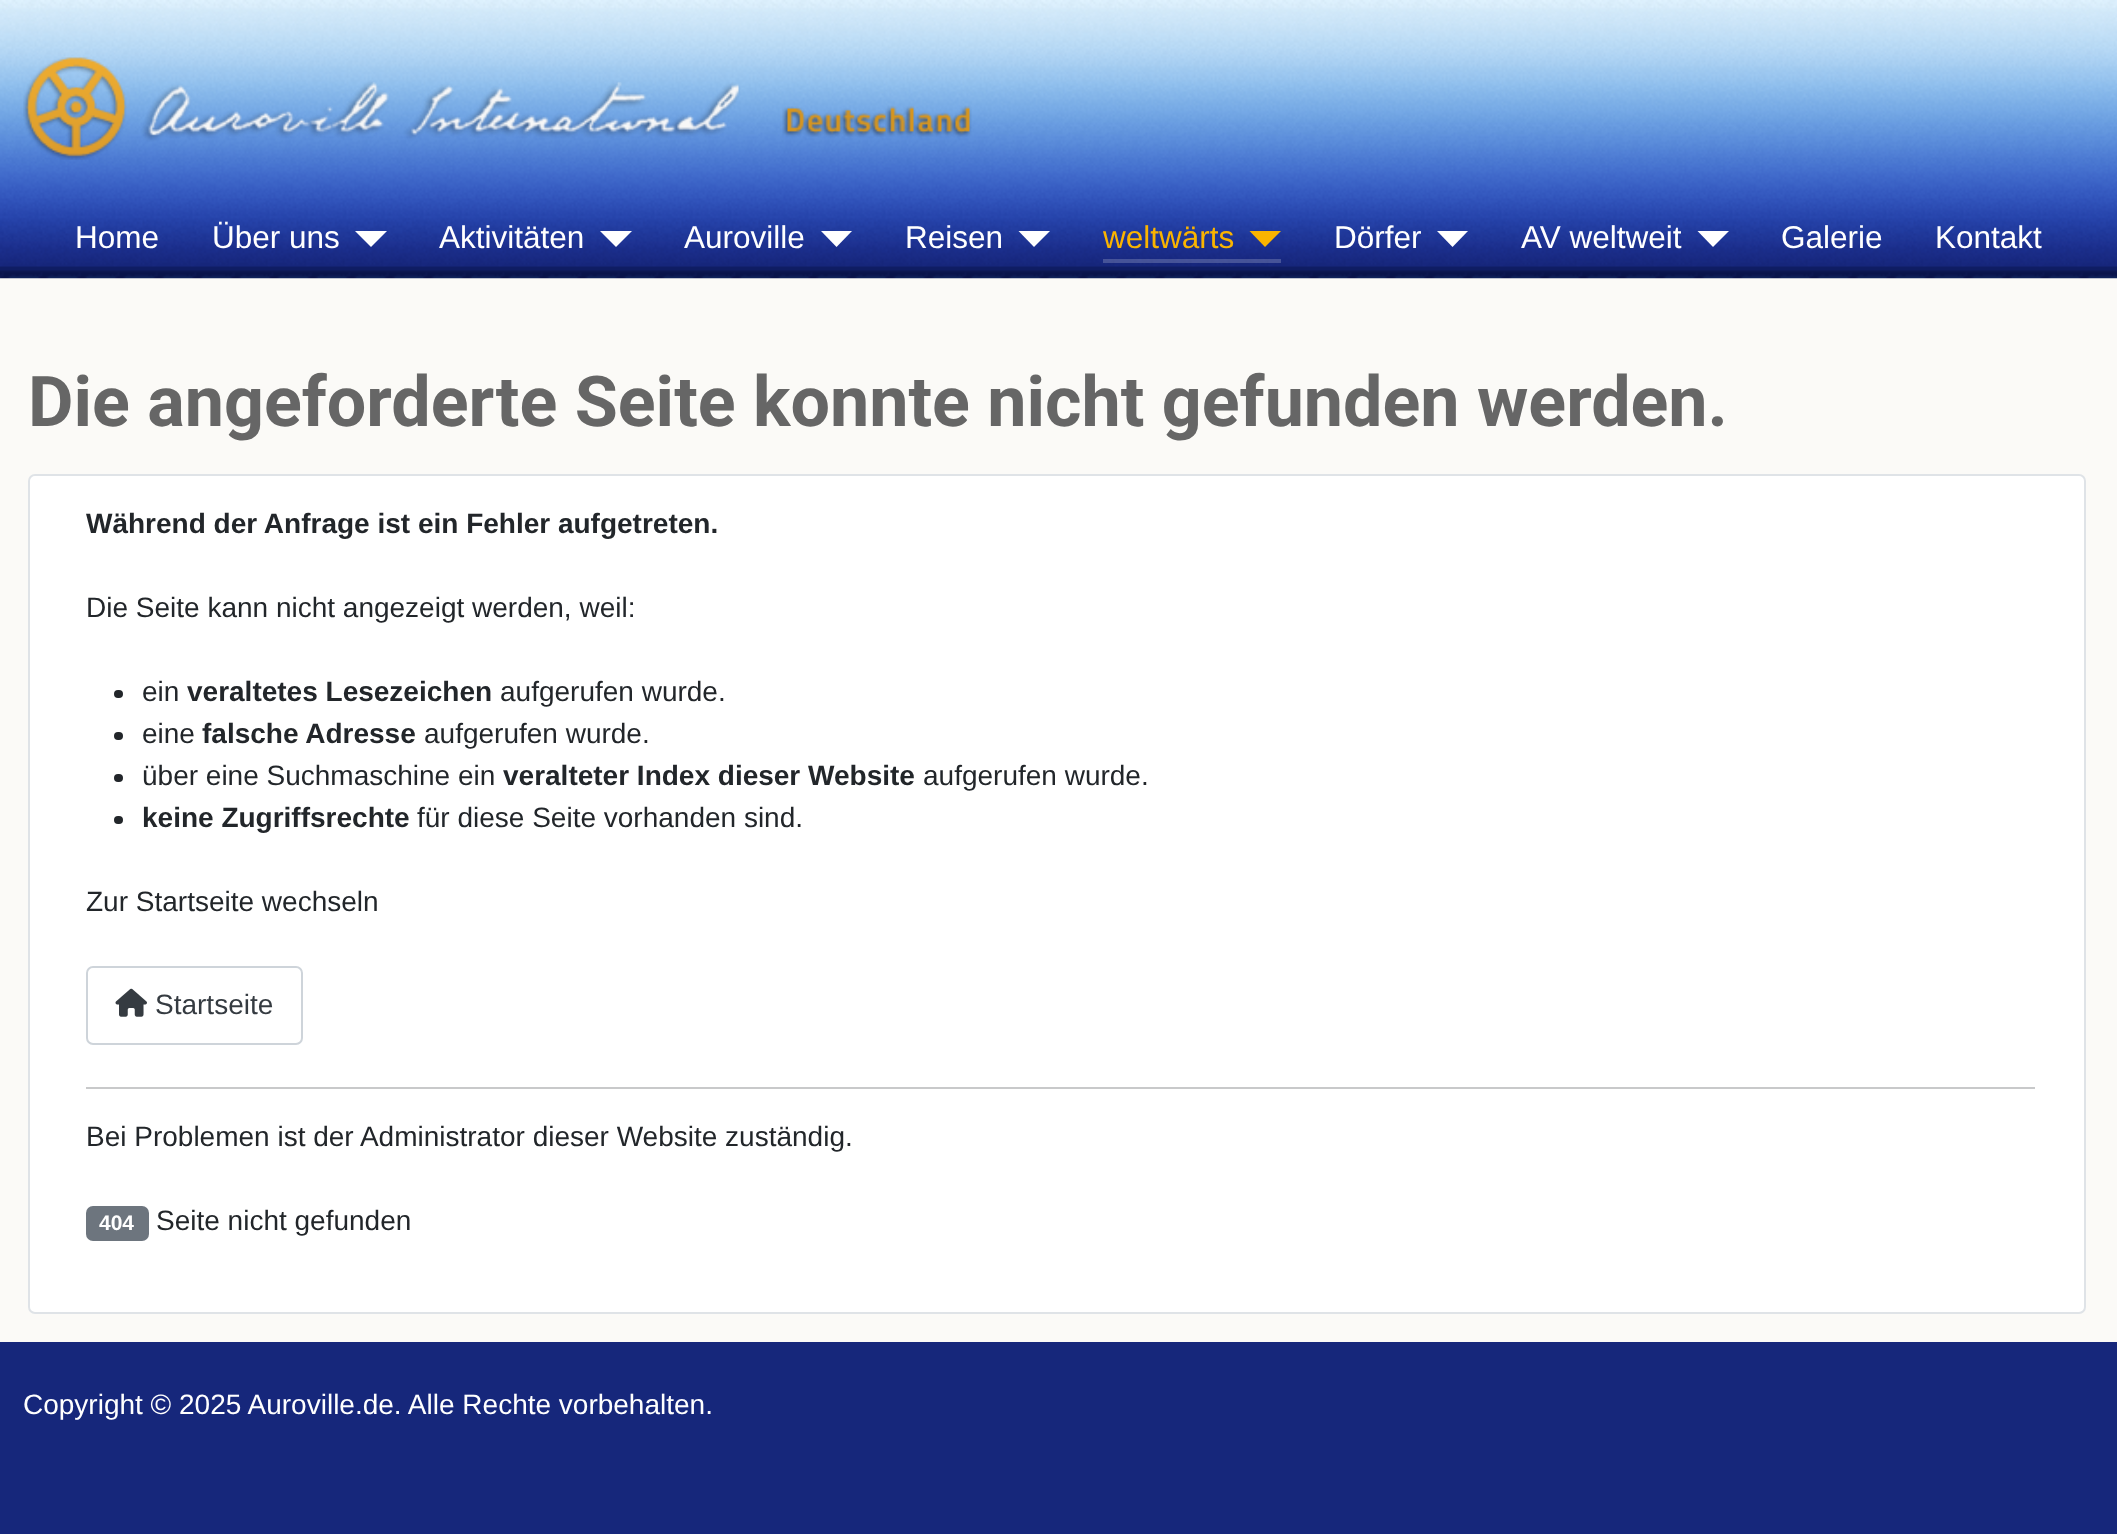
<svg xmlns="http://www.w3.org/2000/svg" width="2117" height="1534">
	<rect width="100%" height="100%" fill="#16277B" />
	<rect x="0" y="278" width="2117" height="1064" fill="#FBFAF7" />
	<image x="0" y="0" width="2117" height="279" href="assets/img1.png" />
	<image x="23" y="57" width="949" height="103" href="assets/img2.png" />
	<g font-family="Liberation Sans" font-size="31.5" fill="#FFFFFF">
		<text x="75" y="248">Home</text>
		<text x="212" y="248">Über uns</text>
	</g>
	<path d="M355 231H387L371 247Z" fill="#FFFFFF" />
	<text x="439" y="248" font-family="Liberation Sans" font-size="31.5" fill="#FFFFFF">Aktivitäten</text>
	<path d="M600 231H632L616 247Z" fill="#FFFFFF" />
	<text x="684" y="248" font-family="Liberation Sans" font-size="31.5" fill="#FFFFFF">Auroville</text>
	<path d="M821 231H852L836.5 247Z" fill="#FFFFFF" />
	<text x="905" y="248" font-family="Liberation Sans" font-size="31.5" fill="#FFFFFF">Reisen</text>
	<path d="M1018.5 231H1050L1034 247Z" fill="#FFFFFF" />
	<text x="1103" y="248" font-family="Liberation Sans" font-size="31.5" fill="#FAB400">weltwärts</text>
	<path d="M1249.5 231H1281L1265 247Z" fill="#FAB400" />
	<rect x="1103" y="259" width="178" height="4" fill="#FFFFFF" fill-opacity="0.2" />
	<text x="1334" y="248" font-family="Liberation Sans" font-size="31.5" fill="#FFFFFF">Dörfer</text>
	<path d="M1437 231H1468L1452.5 247Z" fill="#FFFFFF" />
	<text x="1521" y="248" font-family="Liberation Sans" font-size="31.5" fill="#FFFFFF">AV weltweit</text>
	<path d="M1697.5 231H1729L1713 247Z" fill="#FFFFFF" />
	<g font-family="Liberation Sans" font-size="31.5" fill="#FFFFFF">
		<text x="1781" y="248">Galerie</text>
		<text x="1935" y="248">Kontakt</text>
	</g>
	<text x="28" y="426" font-family="Roboto" font-size="70" font-weight="700" fill="#666666">Die angeforderte Seite konnte nicht gefunden werden.</text>
	<rect x="29" y="475" width="2056" height="838" rx="6" fill="#FFFFFF" stroke="#DFE3E7" stroke-width="2" />
	<text x="86" y="533" font-family="Liberation Sans" font-size="28" font-weight="700" fill="#22262A">Während der Anfrage ist ein Fehler aufgetreten.</text>
	<text x="86" y="617" font-family="Liberation Sans" font-size="28" fill="#22262A">Die Seite kann nicht angezeigt werden, weil:</text>
	<rect x="114" y="690" width="9" height="8" rx="4" fill="#22262A" />
	<text x="142" y="701" font-family="Liberation Sans" font-size="28" fill="#22262A">ein</text>
	<text x="187" y="701" font-family="Liberation Sans" font-size="28" font-weight="700" fill="#22262A">veraltetes Lesezeichen</text>
	<text x="500" y="701" font-family="Liberation Sans" font-size="28" fill="#22262A">aufgerufen wurde.</text>
	<rect x="114" y="732" width="9" height="8" rx="4" fill="#22262A" />
	<text x="142" y="743" font-family="Liberation Sans" font-size="28" fill="#22262A">eine</text>
	<text x="202" y="743" font-family="Liberation Sans" font-size="28" font-weight="700" fill="#22262A">falsche Adresse</text>
	<text x="424" y="743" font-family="Liberation Sans" font-size="28" fill="#22262A">aufgerufen wurde.</text>
	<rect x="114" y="774" width="9" height="8" rx="4" fill="#22262A" />
	<text x="142" y="785" font-family="Liberation Sans" font-size="28" fill="#22262A">über eine Suchmaschine ein</text>
	<text x="503" y="785" font-family="Liberation Sans" font-size="28" font-weight="700" fill="#22262A">veralteter Index dieser Website</text>
	<text x="923" y="785" font-family="Liberation Sans" font-size="28" fill="#22262A">aufgerufen wurde.</text>
	<rect x="114" y="816" width="9" height="8" rx="4" fill="#22262A" />
	<text x="142" y="827" font-family="Liberation Sans" font-size="28" font-weight="700" fill="#22262A">keine Zugriffsrechte</text>
	<g font-family="Liberation Sans" font-size="28" fill="#22262A">
		<text x="417" y="827">für diese Seite vorhanden sind.</text>
		<text x="86" y="911">Zur Startseite wechseln</text>
	</g>
	<rect x="87" y="967" width="215" height="77" rx="6" fill="none" stroke="#CED4DA" stroke-width="2" />
	<image x="115" y="988" width="32" height="29" href="assets/img3.png" />
	<text x="155" y="1014" font-family="Liberation Sans" font-size="28" fill="#353B41">Startseite</text>
	<rect x="86" y="1087" width="1949" height="2" fill="#C8C9CA" />
	<text x="86" y="1146" font-family="Liberation Sans" font-size="28" fill="#22262A">Bei Problemen ist der Administrator dieser Website zuständig.</text>
	<rect x="86" y="1206" width="63" height="35" rx="7" fill="#6D757E" />
	<text x="99" y="1230" font-family="Liberation Sans" font-size="21" font-weight="700" fill="#FFFFFF">404</text>
	<text x="156" y="1230" font-family="Liberation Sans" font-size="28" fill="#22262A">Seite nicht gefunden</text>
	<text x="23" y="1414" font-family="Liberation Sans" font-size="28" fill="#FFFFFF">Copyright © 2025 Auroville.de. Alle Rechte vorbehalten.</text>
</svg>
